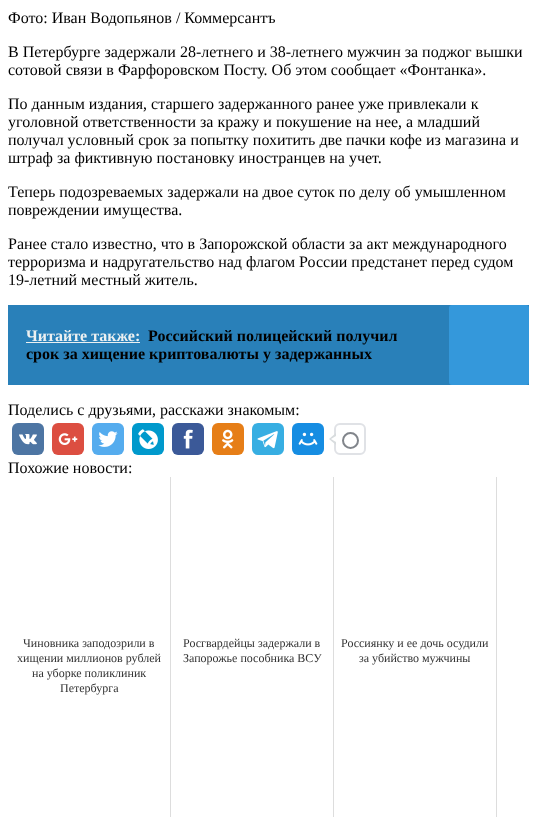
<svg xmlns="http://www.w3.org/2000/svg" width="537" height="817">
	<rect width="100%" height="100%" fill="#FFFFFF" />
	<g font-family="Liberation Serif" font-size="16" fill="#000000">
		<text x="8" y="23">Фото: Иван Водопьянов / Коммерсантъ</text>
		<text x="8" y="57">В Петербурге задержали 28-летнего и 38-летнего мужчин за поджог вышки</text>
		<text x="8" y="75">сотовой связи в Фарфоровском Посту. Об этом сообщает «Фонтанка».</text>
		<text x="8" y="109">По данным издания, старшего задержанного ранее уже привлекали к</text>
		<text x="8" y="127">уголовной ответственности за кражу и покушение на нее, а младший</text>
		<text x="8" y="145">получал условный срок за попытку похитить две пачки кофе из магазина и</text>
		<text x="8" y="163">штраф за фиктивную постановку иностранцев на учет.</text>
		<text x="8" y="197">Теперь подозреваемых задержали на двое суток по делу об умышленном</text>
		<text x="8" y="215">повреждении имущества.</text>
		<text x="8" y="249">Ранее стало известно, что в Запорожской области за акт международного</text>
		<text x="8" y="267">терроризма и надругательство над флагом России предстанет перед судом</text>
		<text x="8" y="285">19-летний местный житель.</text>
	</g>
	<rect x="8" y="305" width="521" height="80" fill="#2980B9" />
	<text x="26" y="341" font-family="Liberation Serif" font-size="16" font-weight="700" fill="#ECF0F1">Читайте также:</text>
	<rect x="26" y="342" width="114" height="1" fill="#ECF0F1" />
	<g font-family="Liberation Serif" font-size="16" font-weight="700" fill="#000000">
		<text x="148" y="341">Российский полицейский получил</text>
		<text x="26" y="359">срок за хищение криптовалюты у задержанных</text>
	</g>
	<rect x="449" y="305" width="80" height="80" rx="3" fill="#3498DB" />
	<text x="8" y="415" font-family="Liberation Serif" font-size="16" fill="#000000">Поделись с друзьями, расскажи знакомым:</text>
	<rect x="12" y="423" width="32" height="32" rx="6" fill="#4D75A3" />
	<image x="19" y="434" width="18" height="11" href="assets/img1.png" />
	<rect x="52" y="423" width="32" height="32" rx="6" fill="#DC4E41" />
	<image x="58" y="433" width="20" height="12" href="assets/img2.png" />
	<rect x="92" y="423" width="32" height="32" rx="6" fill="#55ACEE" />
	<image x="98" y="431" width="20" height="16" href="assets/img3.png" />
	<rect x="132" y="423" width="32" height="32" rx="6" fill="#0099CC" />
	<image x="138" y="429" width="20" height="20" href="assets/img4.png" />
	<rect x="172" y="423" width="32" height="32" rx="6" fill="#3B5998" />
	<image x="183" y="429" width="10" height="20" href="assets/img5.png" />
	<rect x="212" y="423" width="32" height="32" rx="6" fill="#E67E17" />
	<image x="222" y="429" width="12" height="20" href="assets/img6.png" />
	<rect x="252" y="423" width="32" height="32" rx="6" fill="#37AEE2" />
	<image x="257" y="431" width="21" height="18" href="assets/img7.png" />
	<rect x="292" y="423" width="32" height="32" rx="6" fill="#168DE2" />
	<image x="298" y="432" width="20" height="14" href="assets/img8.png" />
	<rect x="335" y="424" width="30" height="30" rx="5" fill="none" stroke="#E0E2E6" stroke-width="2" />
	<path d="M336 433V445L329 439Z" fill="#D8DCDE" />
	<circle cx="350.5" cy="440.5" r="7.5" fill="none" stroke="#81858B" stroke-width="2" />
	<path d="M336 436V442L331 439Z" fill="#FFFFFF" />
	<text x="8" y="473" font-family="Liberation Serif" font-size="16" fill="#000000">Похожие новости:</text>
	<rect x="170" y="477" width="1" height="340" fill="#DDDDDD" />
	<g font-family="Liberation Serif" font-size="12" fill="#333333">
		<text x="23" y="647">Чиновника заподозрили в</text>
		<text x="17" y="662">хищении миллионов рублей</text>
		<text x="32" y="677">на уборке поликлиник</text>
		<text x="60" y="692">Петербурга</text>
	</g>
	<rect x="333" y="477" width="1" height="340" fill="#DDDDDD" />
	<g font-family="Liberation Serif" font-size="12" fill="#333333">
		<text x="183" y="647">Росгвардейцы задержали в</text>
		<text x="183" y="662">Запорожье пособника ВСУ</text>
	</g>
	<rect x="496" y="477" width="1" height="340" fill="#DDDDDD" />
	<g font-family="Liberation Serif" font-size="12" fill="#333333">
		<text x="341" y="647">Россиянку и ее дочь осудили</text>
		<text x="359" y="662">за убийство мужчины</text>
	</g>
</svg>
